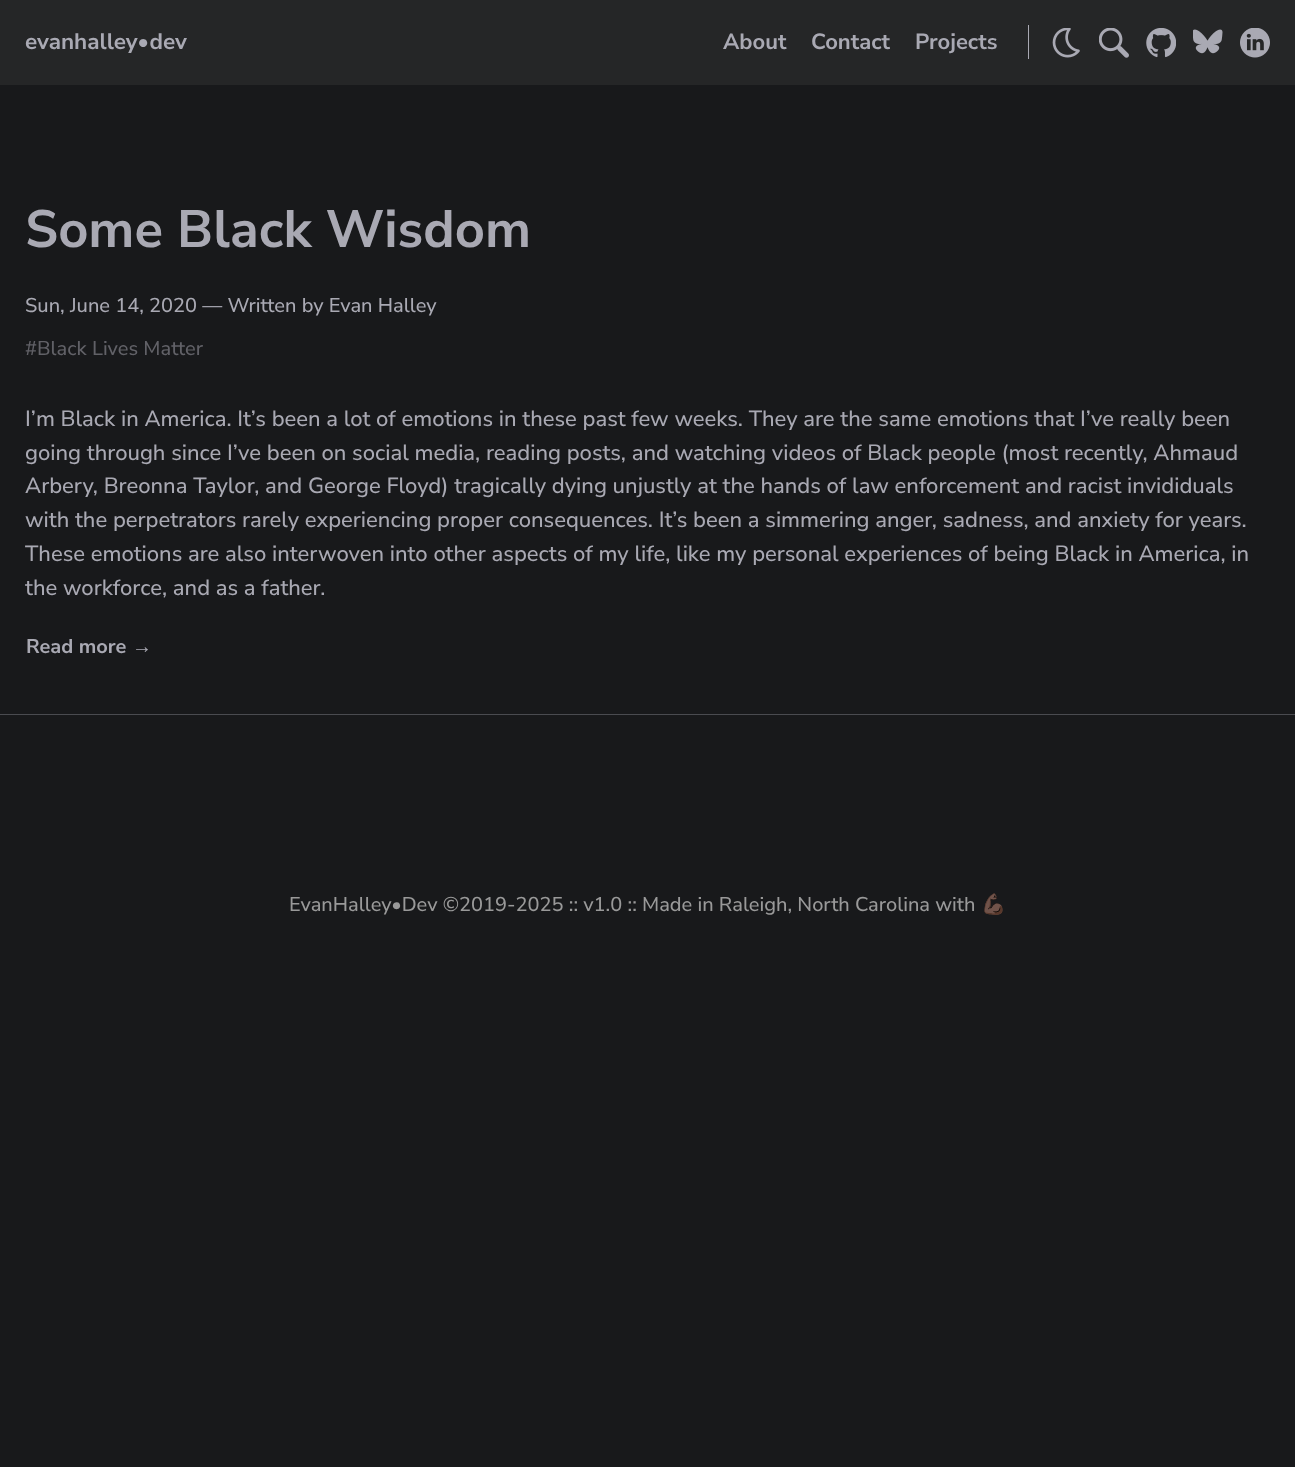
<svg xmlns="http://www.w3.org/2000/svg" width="1295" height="1467">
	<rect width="100%" height="100%" fill="#18191B" />
	<rect x="0" y="0" width="1295" height="85" fill="#252627" />
	<text x="25" y="49" font-family="Nunito Sans" font-size="22.5" font-weight="700" fill="#A9A9B3">evanhalley•dev</text>
	<rect x="1028" y="25" width="1" height="34" fill="#A9A9B3" />
	<g font-family="Nunito Sans" font-size="22" font-weight="700" fill="#A9A9B3">
		<text x="723" y="49">About</text>
		<text x="811" y="49">Contact</text>
		<text x="915" y="49">Projects</text>
	</g>
	<image x="1052" y="28" width="28" height="30" href="assets/img1.png" />
	<image x="1099" y="28" width="30" height="30" href="assets/img2.png" />
	<image x="1146" y="28" width="30" height="30" href="assets/img3.png" />
	<image x="1193" y="29" width="30" height="25" href="assets/img4.png" />
	<image x="1240" y="28" width="30" height="30" href="assets/img5.png" />
	<rect x="0" y="714" width="1295" height="1" fill="#4A4B50" />
	<text x="25" y="247" font-family="Nunito Sans" font-size="52.5" font-weight="700" fill="#A9A9B3">Some Black Wisdom</text>
	<text x="25" y="312" font-family="Nunito Sans" font-size="20" font-weight="500" fill="#A9A9B3">Sun, June 14, 2020 — Written by Evan Halley</text>
	<text x="25" y="355" font-family="Nunito Sans" font-size="20" font-weight="500" fill="#616167">#Black Lives Matter</text>
	<g font-family="Nunito Sans" font-size="22" font-weight="500" fill="#A9A9B3">
		<text x="25" y="426">I’m Black in America. It’s been a lot of emotions in these past few weeks. They are the same emotions that I’ve really been</text>
		<text x="25" y="460">going through since I’ve been on social media, reading posts, and watching videos of Black people (most recently, Ahmaud</text>
		<text x="25" y="493">Arbery, Breonna Taylor, and George Floyd) tragically dying unjustly at the hands of law enforcement and racist invididuals</text>
		<text x="25" y="527">with the perpetrators rarely experiencing proper consequences. It’s been a simmering anger, sadness, and anxiety for years.</text>
		<text x="25" y="561">These emotions are also interwoven into other aspects of my life, like my personal experiences of being Black in America, in</text>
		<text x="25" y="595">the workforce, and as a father.</text>
	</g>
	<text x="26" y="653" font-family="Nunito Sans" font-size="20" font-weight="700" fill="#A9A9B3">Read more</text>
	<text x="132" y="653" font-family="Liberation Sans" font-size="20" font-weight="700" fill="#A9A9B3">→</text>
	<text x="289" y="911" font-family="Nunito Sans" font-size="20" font-weight="500" fill="#999999">EvanHalley•Dev ©2019-2025 :: v1.0 :: Made in Raleigh, North Carolina with</text>
	<text x="981" y="911" font-family="Noto Color Emoji" font-size="20" fill="#999999">💪🏿</text>
</svg>
